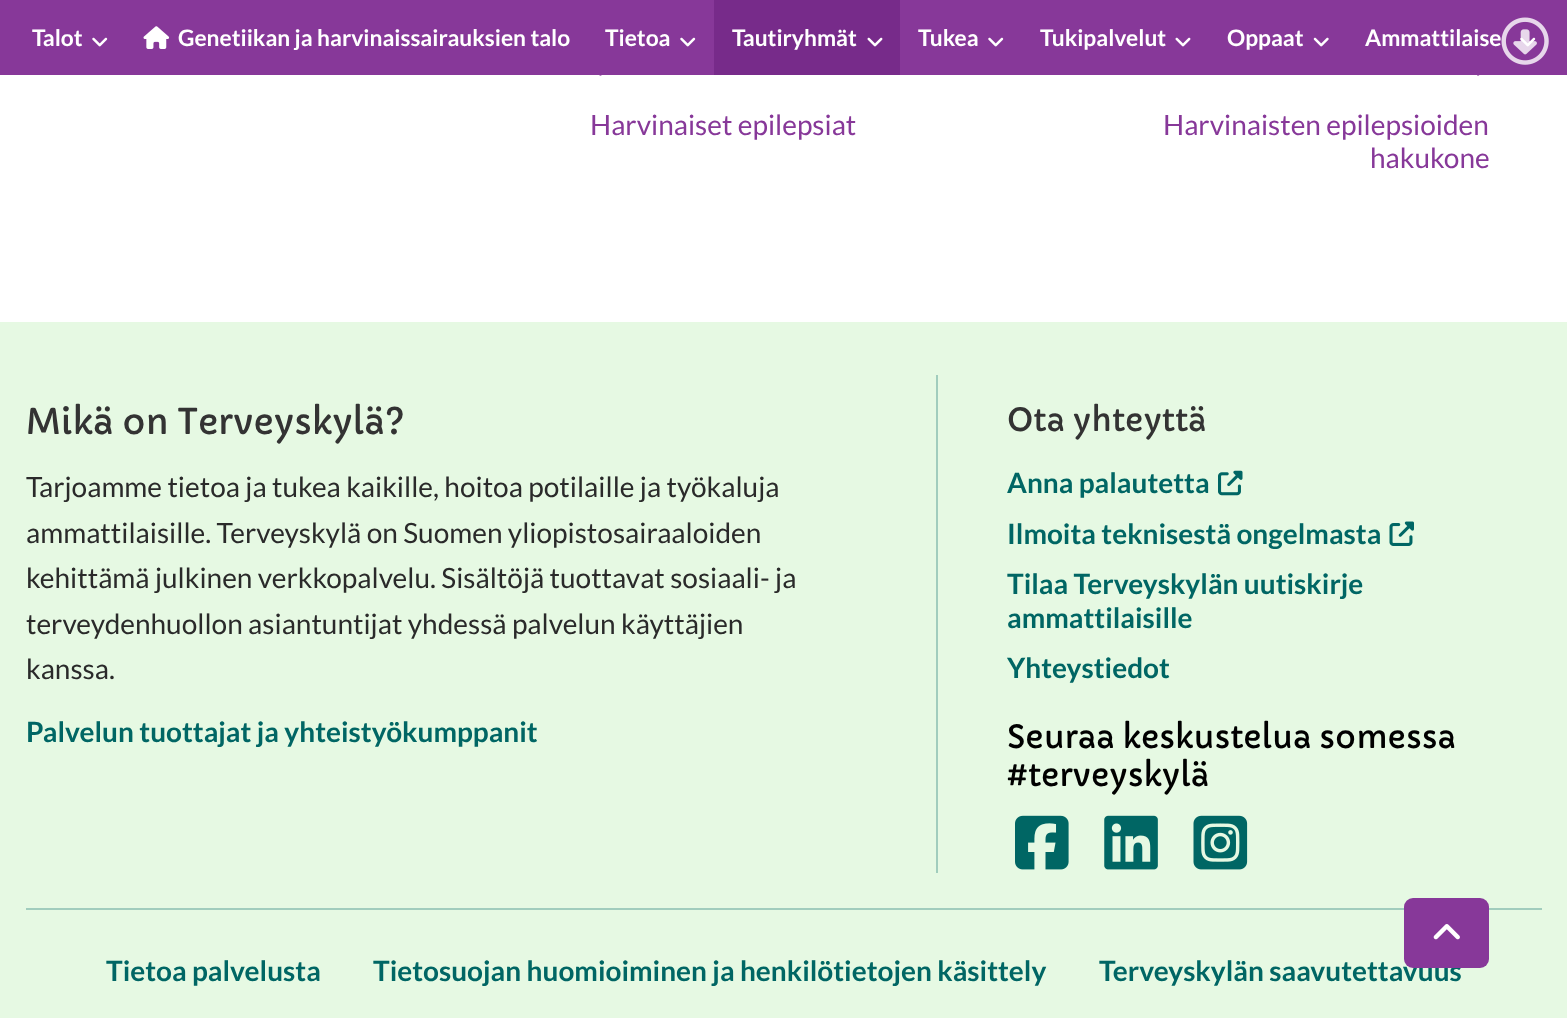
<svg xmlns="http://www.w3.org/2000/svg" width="1567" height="1018">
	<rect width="100%" height="100%" fill="#FFFFFF" />
	<rect x="0" y="0" width="1567" height="75" fill="#873899" />
	<text x="32" y="46" font-family="Lato" font-size="22.75" font-weight="700" fill="#FFFFFF">Talot</text>
	<image x="92" y="37" width="16" height="10" href="assets/img1.png" />
	<image x="143" y="26" width="27" height="23" href="assets/img2.png" />
	<g font-family="Lato" font-size="22.75" font-weight="700" fill="#FFFFFF">
		<text x="178" y="46">Genetiikan ja harvinaissairauksien talo</text>
		<text x="605" y="46">Tietoa</text>
	</g>
	<image x="680" y="37" width="16" height="10" href="assets/img1.png" />
	<rect x="714" y="0" width="186" height="75" fill="#772B8A" />
	<text x="732" y="46" font-family="Lato" font-size="22.75" font-weight="700" fill="#FFFFFF">Tautiryhmät</text>
	<image x="867" y="37" width="16" height="10" href="assets/img3.png" />
	<text x="918" y="46" font-family="Lato" font-size="22.75" font-weight="700" fill="#FFFFFF">Tukea</text>
	<image x="988" y="37" width="16" height="10" href="assets/img1.png" />
	<text x="1040" y="46" font-family="Lato" font-size="22.75" font-weight="700" fill="#FFFFFF">Tukipalvelut</text>
	<image x="1175" y="37" width="16" height="10" href="assets/img4.png" />
	<text x="1227" y="46" font-family="Lato" font-size="22.75" font-weight="700" fill="#FFFFFF">Oppaat</text>
	<image x="1313" y="37" width="16" height="10" href="assets/img5.png" />
	<text x="1365" y="46" font-family="Lato" font-size="22.75" font-weight="700" fill="#FFFFFF">Ammattilaise</text>
	<image x="1520" y="37" width="16" height="10" href="assets/img1.png" />
	<image x="1501" y="17" width="48" height="48" href="assets/img6.png" />
	<image x="599" y="75" width="3" height="1" href="assets/img7.png" />
	<text x="590" y="135" font-family="Lato" font-size="28" fill="#873899">Harvinaiset epilepsiat</text>
	<image x="1477" y="75" width="3" height="1" href="assets/img8.png" />
	<g font-family="Lato" font-size="28" fill="#873899">
		<text x="1163" y="135">Harvinaisten epilepsioiden</text>
		<text x="1370" y="168">hakukone</text>
	</g>
	<rect x="0" y="322" width="1567" height="696" fill="#E6F9E3" />
	<text x="26" y="434" font-family="Capriola" font-size="35" fill="#333333">Mikä on Terveyskylä?</text>
	<g font-family="Lato" font-size="28" fill="#2A2A2A">
		<text x="26" y="497">Tarjoamme tietoa ja tukea kaikille, hoitoa potilaille ja työkaluja</text>
		<text x="26" y="543">ammattilaisille. Terveyskylä on Suomen yliopistosairaaloiden</text>
		<text x="26" y="588">kehittämä julkinen verkkopalvelu. Sisältöjä tuottavat sosiaali- ja</text>
		<text x="26" y="634">terveydenhuollon asiantuntijat yhdessä palvelun käyttäjien</text>
		<text x="26" y="679">kanssa.</text>
	</g>
	<text x="26" y="742" font-family="Lato" font-size="28" font-weight="700" fill="#006664">Palvelun tuottajat ja yhteistyökumppanit</text>
	<rect x="936" y="375" width="2" height="498" fill="#A1CDBD" />
	<text x="1007" y="431" font-family="Capriola" font-size="31.5" fill="#333333">Ota yhteyttä</text>
	<text x="1007" y="493" font-family="Lato" font-size="28" font-weight="700" fill="#006664">Anna palautetta</text>
	<image x="1218" y="470" width="25" height="26" href="assets/img9.png" />
	<text x="1007" y="544" font-family="Lato" font-size="28" font-weight="700" fill="#006664">Ilmoita teknisestä ongelmasta</text>
	<image x="1389" y="521" width="25" height="25" href="assets/img10.png" />
	<g font-family="Lato" font-size="28" font-weight="700" fill="#006664">
		<text x="1007" y="594">Tilaa Terveyskylän uutiskirje</text>
		<text x="1007" y="628">ammattilaisille</text>
		<text x="1007" y="678">Yhteystiedot</text>
	</g>
	<g font-family="Capriola" font-size="31.5" fill="#000000">
		<text x="1007" y="748">Seuraa keskustelua somessa</text>
		<text x="1007" y="786">#terveyskylä</text>
	</g>
	<image x="1015" y="815" width="54" height="55" href="assets/img11.png" />
	<image x="1104" y="815" width="54" height="55" href="assets/img12.png" />
	<image x="1193" y="815" width="55" height="55" href="assets/img13.png" />
	<rect x="26" y="908" width="1516" height="2" fill="#A1CDBD" />
	<g font-family="Lato" font-size="28" font-weight="700" fill="#006664">
		<text x="106" y="981">Tietoa palvelusta</text>
		<text x="373" y="981">Tietosuojan huomioiminen ja henkilötietojen käsittely</text>
		<text x="1099" y="981">Terveyskylän saavutettavuus</text>
	</g>
	<rect x="1404" y="898" width="85" height="70" rx="9" fill="#873899" />
	<image x="1433" y="924" width="27" height="16" href="assets/img14.png" />
</svg>
